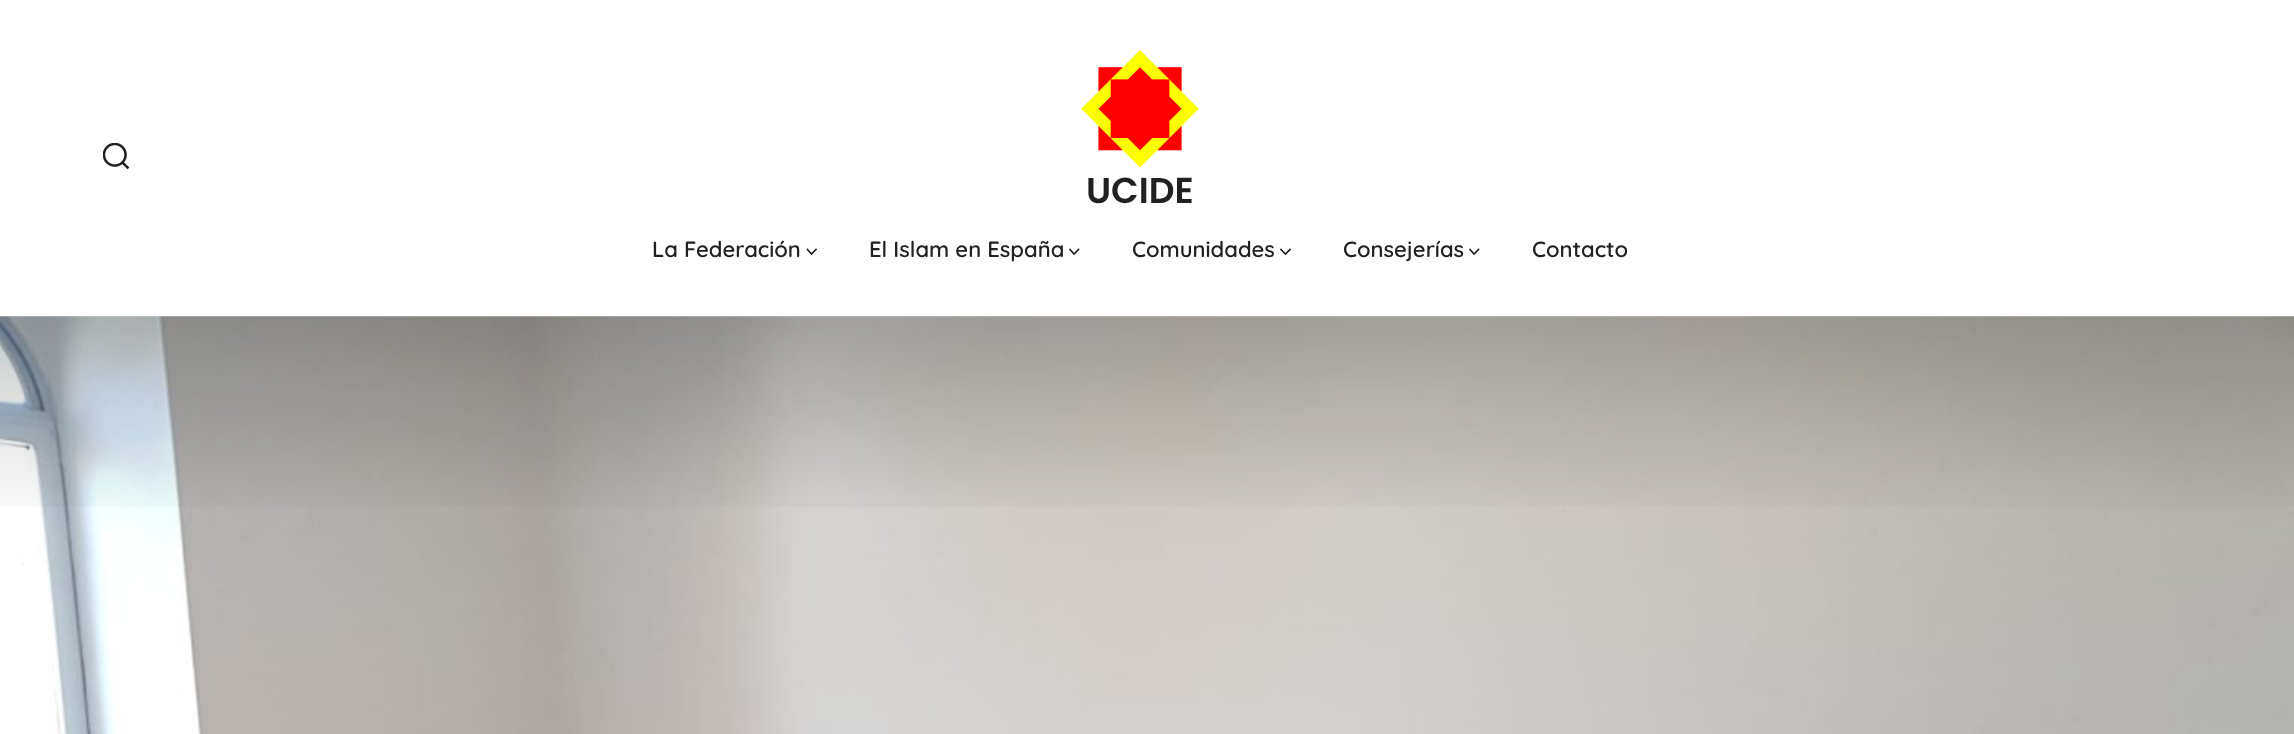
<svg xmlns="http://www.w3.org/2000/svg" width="2294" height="734">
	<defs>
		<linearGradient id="g1" gradientUnits="userSpaceOnUse" x1="1148" y1="316" x2="1148" y2="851"><stop offset="0" stop-color="#000000" stop-opacity="0.2" /><stop offset="0.4" stop-color="#000000" stop-opacity="0" /></linearGradient>
	</defs>
	<rect width="100%" height="100%" fill="#FFFFFF" />
	<image x="103" y="143" width="27" height="27" href="assets/img1.png" />
	<image x="1081" y="50" width="118" height="118" href="assets/img2.png" />
	<text x="1086" y="203" font-family="Poppins" font-size="36" font-weight="600" fill="#212121">UCIDE</text>
	<text x="652" y="257" font-family="Quicksand" font-size="22" font-weight="600" fill="#212121">La Federación</text>
	<path d="M807.5 249.5L811.5 254L816 249.5" fill="none" stroke="#212121" stroke-width="1.6" stroke-linecap="square" />
	<text x="869" y="257" font-family="Quicksand" font-size="22" font-weight="600" fill="#212121">El Islam en España</text>
	<path d="M1070 249.5L1074 254L1078.5 249.5" fill="none" stroke="#212121" stroke-width="1.6" stroke-linecap="square" />
	<text x="1132" y="257" font-family="Quicksand" font-size="22" font-weight="600" fill="#212121">Comunidades</text>
	<path d="M1281 249.5L1285.5 254L1290 249.5" fill="none" stroke="#212121" stroke-width="1.6" stroke-linecap="square" />
	<text x="1343" y="257" font-family="Quicksand" font-size="22" font-weight="600" fill="#212121">Consejerías</text>
	<path d="M1470 249.5L1474 254L1478.5 249.5" fill="none" stroke="#212121" stroke-width="1.6" stroke-linecap="square" />
	<text x="1532" y="257" font-family="Quicksand" font-size="22" font-weight="600" fill="#212121">Contacto</text>
	<image x="0" y="316" width="2294" height="418" href="assets/img3.png" />
	<rect x="0" y="316" width="2294" height="191" fill="url(#g1)" />
</svg>
